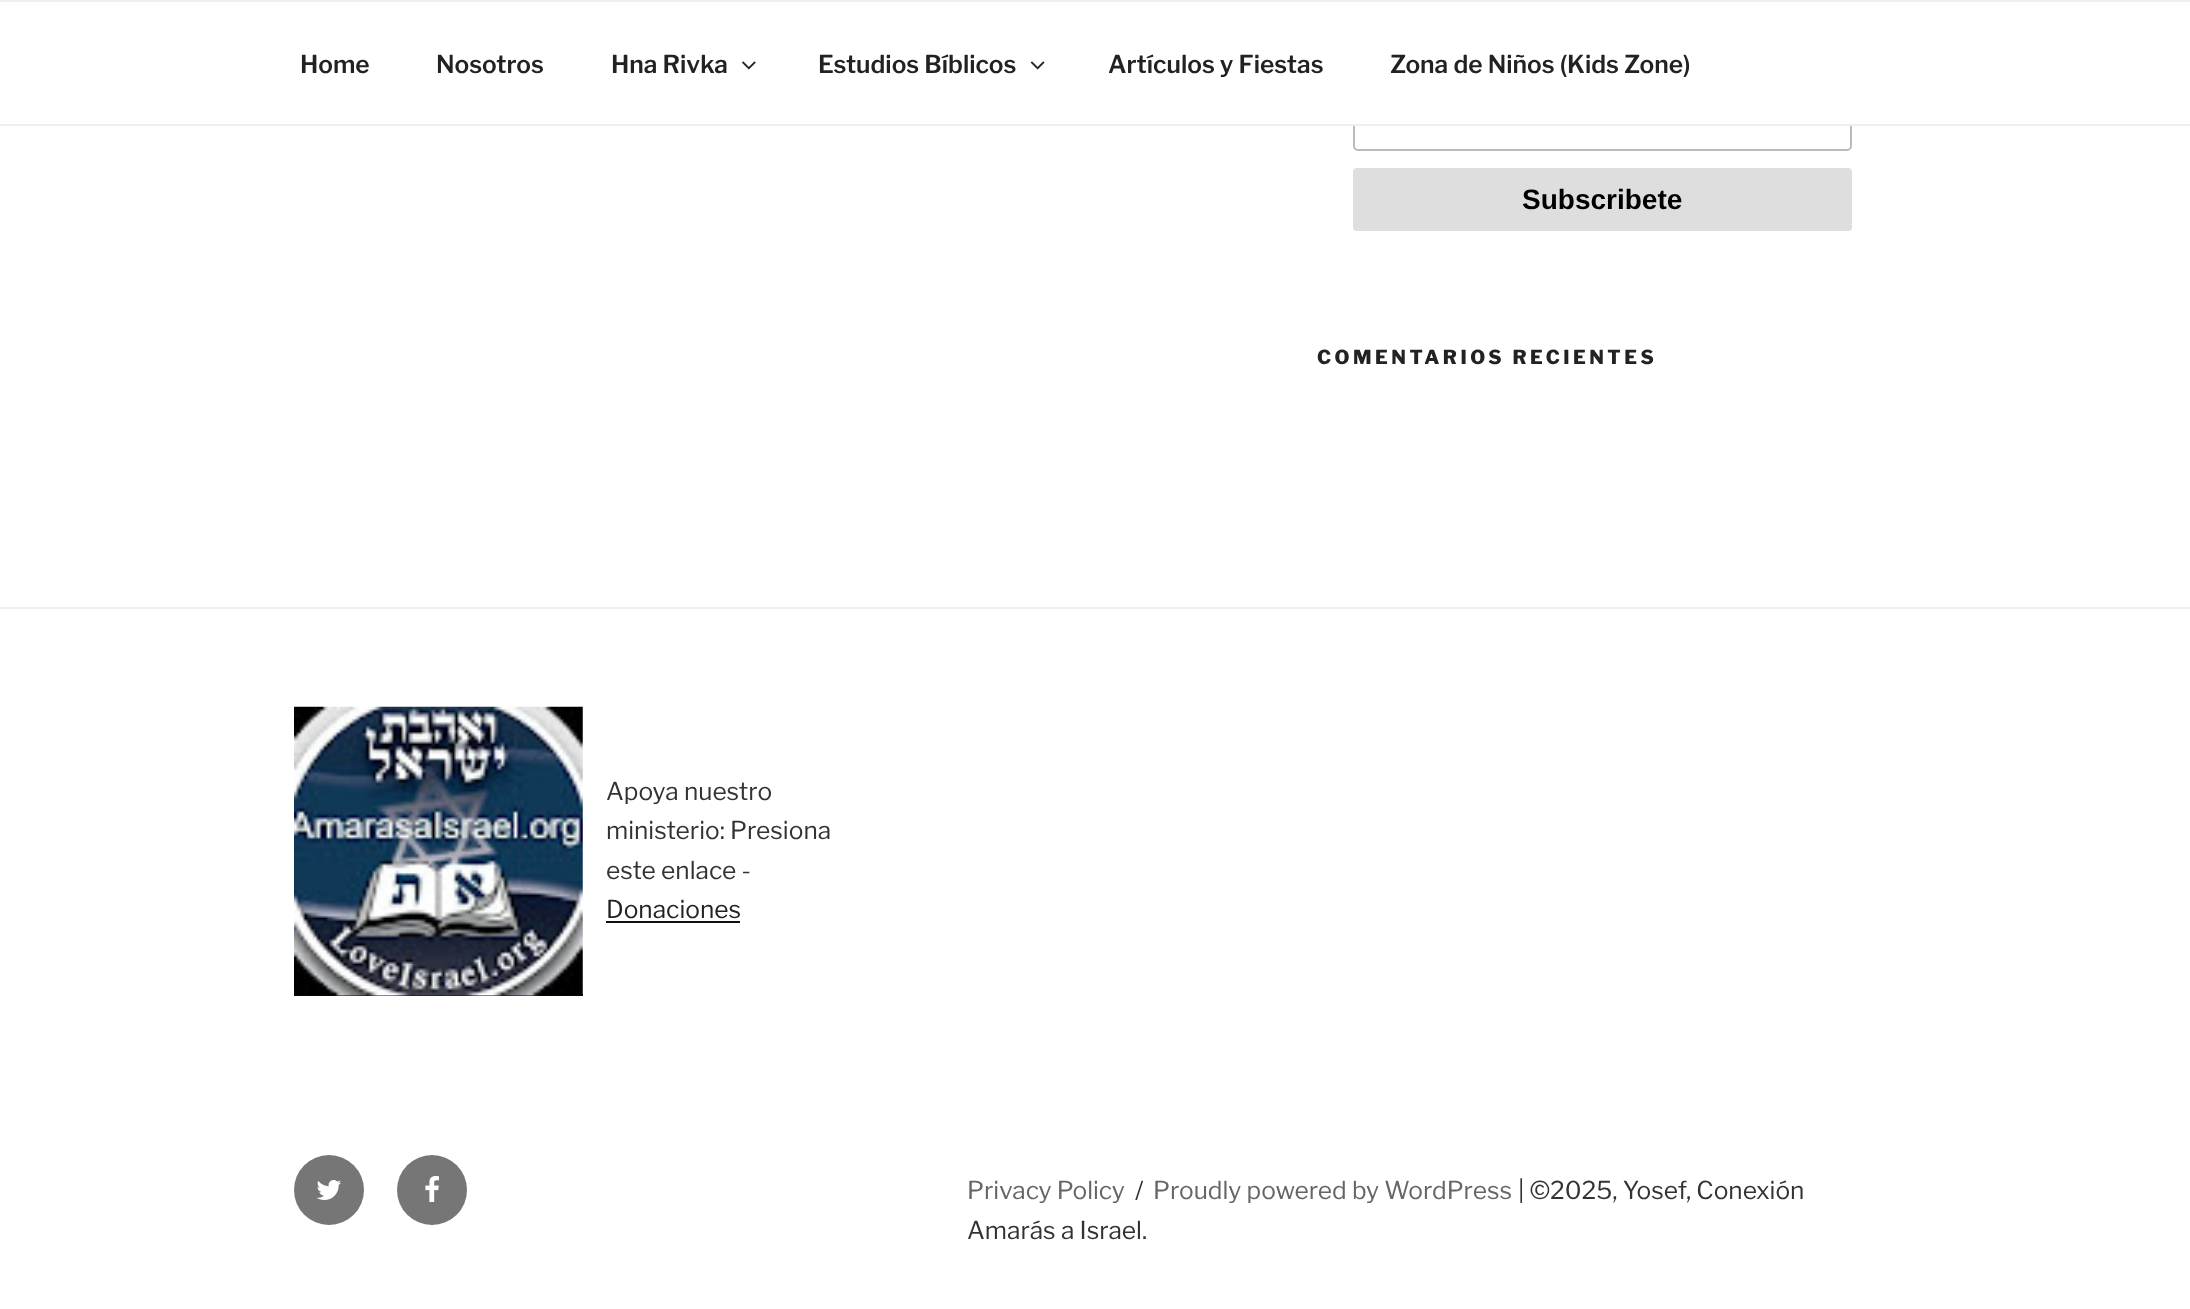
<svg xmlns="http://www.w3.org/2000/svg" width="2190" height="1309">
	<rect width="100%" height="100%" fill="#FFFFFF" />
	<rect x="1354" y="76" width="497" height="74" rx="4" fill="none" stroke="#BBBBBB" stroke-width="2" />
	<rect x="1353" y="75" width="499" height="49" fill="#FFFFFF" />
	<rect x="0" y="0" width="2190" height="2" fill="#EEEEEE" />
	<rect x="0" y="124" width="2190" height="2" fill="#EEEEEE" />
	<g font-family="'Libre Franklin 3'" font-size="24.5" font-weight="100" fill="#222222">
		<text x="300" y="73">Home</text>
		<text x="436" y="73">Nosotros</text>
		<text x="611" y="73">Hna Rivka</text>
	</g>
	<image x="742" y="61" width="14" height="9" href="assets/img1.png" />
	<text x="818" y="73" font-family="'Libre Franklin 3'" font-size="24.5" font-weight="100" fill="#222222">Estudios Bíblicos</text>
	<image x="1030" y="61" width="15" height="9" href="assets/img2.png" />
	<g font-family="'Libre Franklin 3'" font-size="24.5" font-weight="100" fill="#222222">
		<text x="1108" y="73">Artículos y Fiestas</text>
		<text x="1390" y="73">Zona de Niños (Kids Zone)</text>
	</g>
	<rect x="1353" y="168" width="499" height="63" rx="4" fill="#DEDEDE" />
	<text x="1522" y="209" font-family="Liberation Sans" font-size="28" font-weight="700" fill="#000000">Subscribete</text>
	<text x="1317" y="364" font-family="Libre Franklin" font-size="19.25" font-weight="100" letter-spacing="3.5" fill="#222222">COMENTARIOS RECIENTES</text>
	<rect x="0" y="607" width="2190" height="2" fill="#EEEEEE" />
	<rect x="294" y="994" width="289" height="2" fill="#0F0F0F" />
	<image x="294" y="706" width="289" height="290" href="assets/img3.png" />
	<g font-family="'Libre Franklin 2'" font-size="24.5" font-weight="100" fill="#333333">
		<text x="606" y="800">Apoya nuestro</text>
		<text x="606" y="839">ministerio: Presiona</text>
		<text x="606" y="879">este enlace -</text>
	</g>
	<text x="606" y="918" font-family="'Libre Franklin 2'" font-size="24.5" font-weight="100" fill="#222222">Donaciones</text>
	<rect x="606" y="921" width="134" height="2" fill="#0F0F0F" />
	<circle cx="329" cy="1190" r="35" fill="#767676" />
	<image x="316" y="1180" width="25" height="20" href="assets/img4.png" />
	<circle cx="432" cy="1190" r="35" fill="#767676" />
	<image x="425" y="1176" width="14" height="26" href="assets/img5.png" />
	<text x="967" y="1199" font-family="'Libre Franklin 2'" font-size="24.5" font-weight="100" fill="#666666">Privacy Policy</text>
	<text x="1135" y="1199" font-family="'Libre Franklin 2'" font-size="24.5" font-weight="100" fill="#333333">/</text>
	<text x="1153" y="1199" font-family="'Libre Franklin 2'" font-size="24.5" font-weight="100" fill="#666666">Proudly powered by WordPress</text>
	<g font-family="'Libre Franklin 2'" font-size="24.5" font-weight="100" fill="#333333">
		<text x="1518" y="1199">| ©2025, Yosef, Conexión</text>
		<text x="967" y="1239">Amarás a Israel.</text>
	</g>
</svg>
